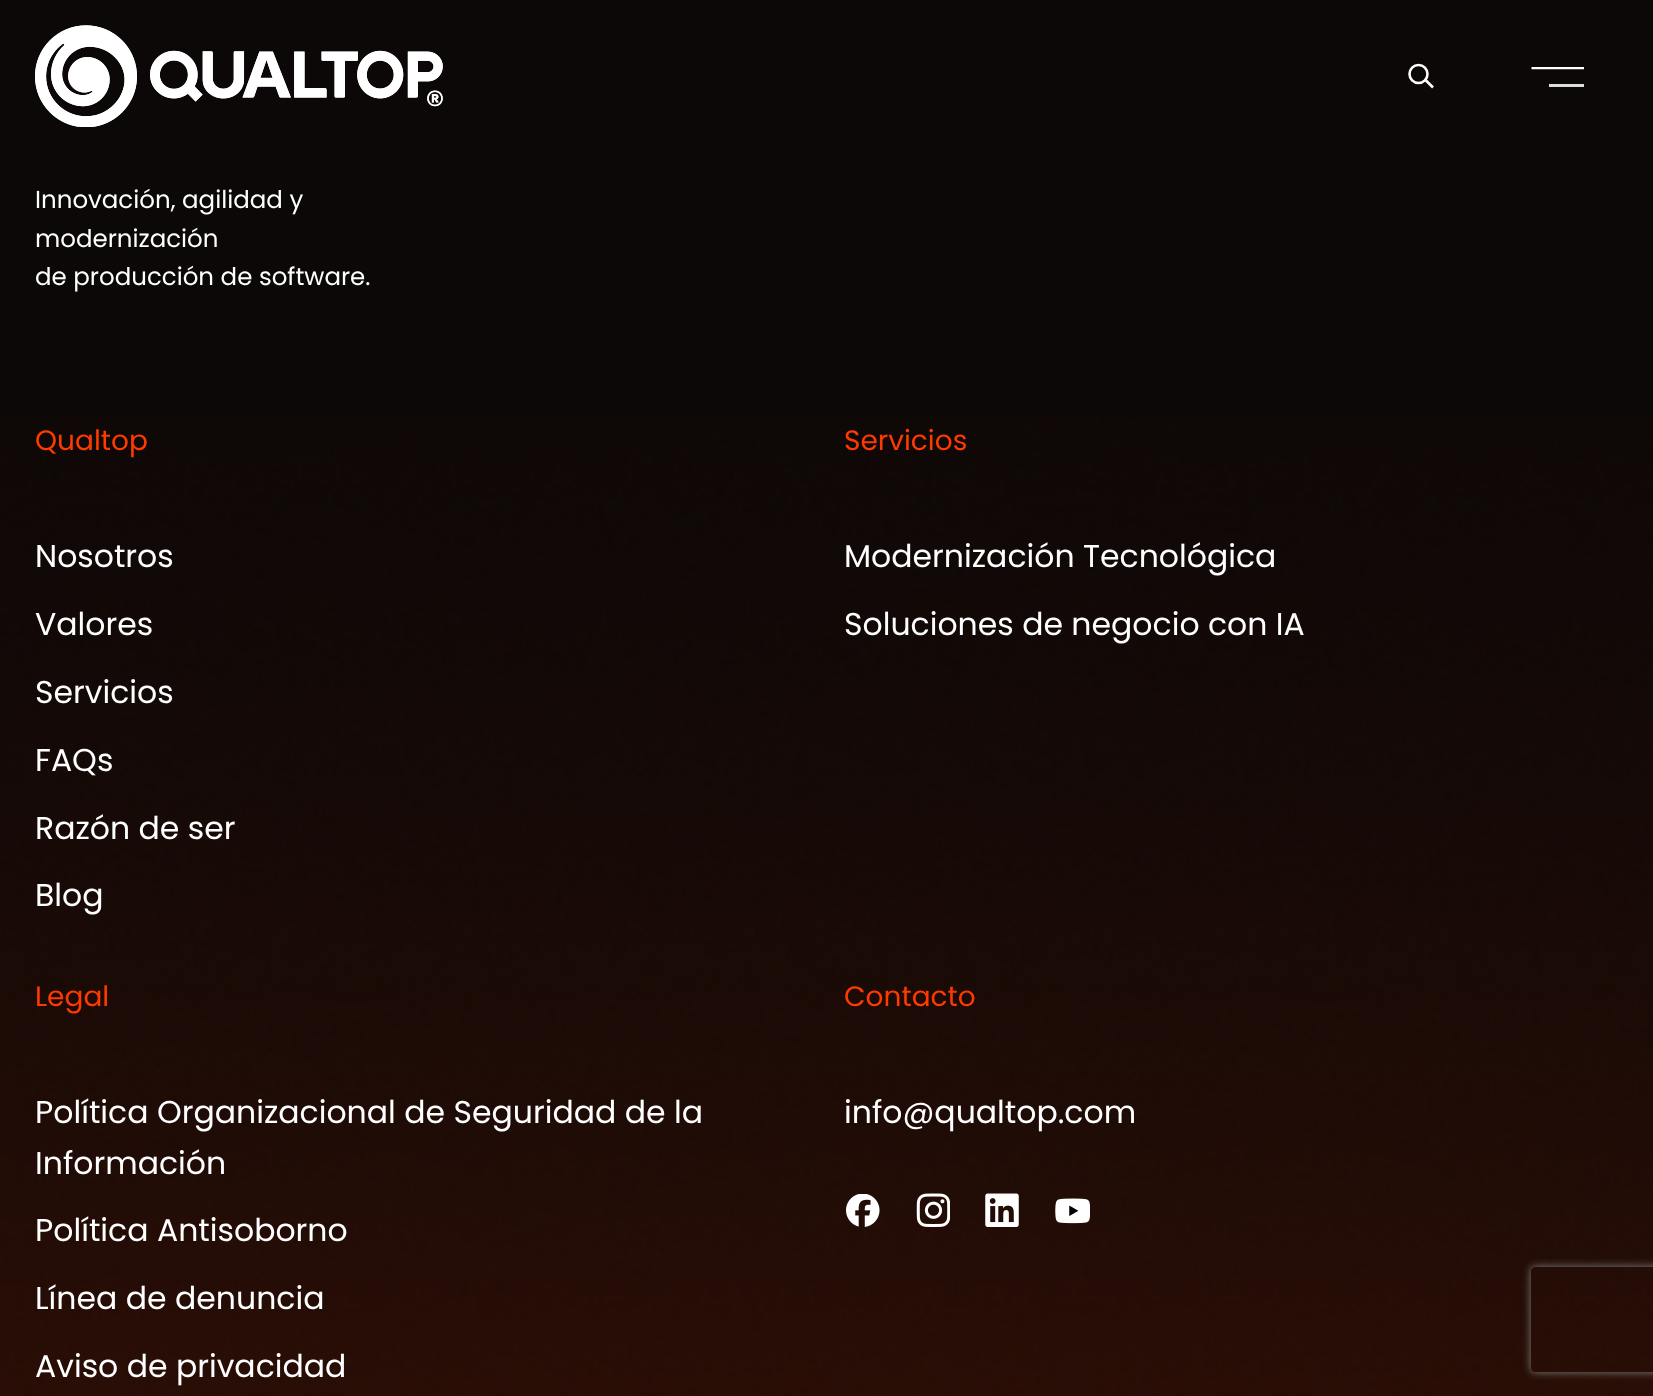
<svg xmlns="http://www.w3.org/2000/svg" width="1653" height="1396">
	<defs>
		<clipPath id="clip1"><rect x="1531" y="67" width="53" height="21" /></clipPath>
		<clipPath id="clip2"><path d="M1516 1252H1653V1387H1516ZM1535 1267H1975C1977 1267 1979 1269 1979 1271V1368C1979 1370 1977 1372 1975 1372H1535C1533 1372 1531 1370 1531 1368V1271C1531 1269 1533 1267 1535 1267Z" clip-rule="evenodd" /></clipPath>
	</defs>
	<rect width="100%" height="100%" fill="#0C0807" />
	<image x="35" y="25" width="408" height="102" href="assets/img3.png" />
	<image x="35" y="25" width="408" height="102" href="assets/img1.png" />
	<circle cx="1418.5" cy="74" r="9" fill="none" stroke="#FFFFFF" stroke-width="2.6" />
	<path d="M1425.5 80L1433 87.5" fill="none" stroke="#FFFFFF" stroke-width="2.6" />
	<g clip-path="url(#clip1)">
		<path d="M1584 68H1531.5" fill="none" stroke="#FFFFFF" stroke-width="2.6" />
	</g>
	<rect x="1549" y="84" width="35" height="3" fill="#DFDEDE" />
	<image x="0" y="415" width="1653" height="981" href="assets/img2.png" />
	<g font-family="Poppins" font-size="24.5" fill="#FFFFFF">
		<text x="35" y="208">Innovación, agilidad y</text>
		<text x="35" y="247">modernización</text>
		<text x="35" y="285">de producción de software.</text>
	</g>
	<text x="35" y="450" font-family="Poppins" font-size="28" fill="#FF3A00">Qualtop</text>
	<g font-family="Poppins" font-size="31.5" fill="#FFFFFF">
		<text x="35" y="567">Nosotros</text>
		<text x="35" y="635">Valores</text>
		<text x="35" y="703">Servicios</text>
		<text x="35" y="771">FAQs</text>
		<text x="35" y="839">Razón de ser</text>
		<text x="35" y="906">Blog</text>
	</g>
	<text x="844" y="450" font-family="Poppins" font-size="28" fill="#FF3A00">Servicios</text>
	<g font-family="Poppins" font-size="31.5" fill="#FFFFFF">
		<text x="844" y="567">Modernización Tecnológica</text>
		<text x="844" y="635">Soluciones de negocio con IA</text>
	</g>
	<text x="35" y="1006" font-family="Poppins" font-size="28" fill="#FF3A00">Legal</text>
	<g font-family="Poppins" font-size="31.5" fill="#FFFFFF">
		<text x="35" y="1123">Política Organizacional de Seguridad de la</text>
		<text x="35" y="1174">Información</text>
		<text x="35" y="1241">Política Antisoborno</text>
		<text x="35" y="1309">Línea de denuncia</text>
		<text x="35" y="1377">Aviso de privacidad</text>
	</g>
	<text x="844" y="1006" font-family="Poppins" font-size="28" fill="#FF3A00">Contacto</text>
	<text x="844" y="1123" font-family="Poppins" font-size="31.5" fill="#FFFFFF">info@qualtop.com</text>
	<image x="846" y="1194" width="34" height="33" href="assets/img4.png" />
	<image x="916" y="1193" width="34" height="34" href="assets/img5.png" />
	<image x="985" y="1193" width="34" height="34" href="assets/img6.png" />
	<image x="1055" y="1198" width="35" height="26" href="assets/img7.png" />
	<g clip-path="url(#clip2)">
		<rect x="1531" y="1267" width="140" height="105" rx="4" fill="#808080" filter="blur(4.5px)" />
	</g>
</svg>
